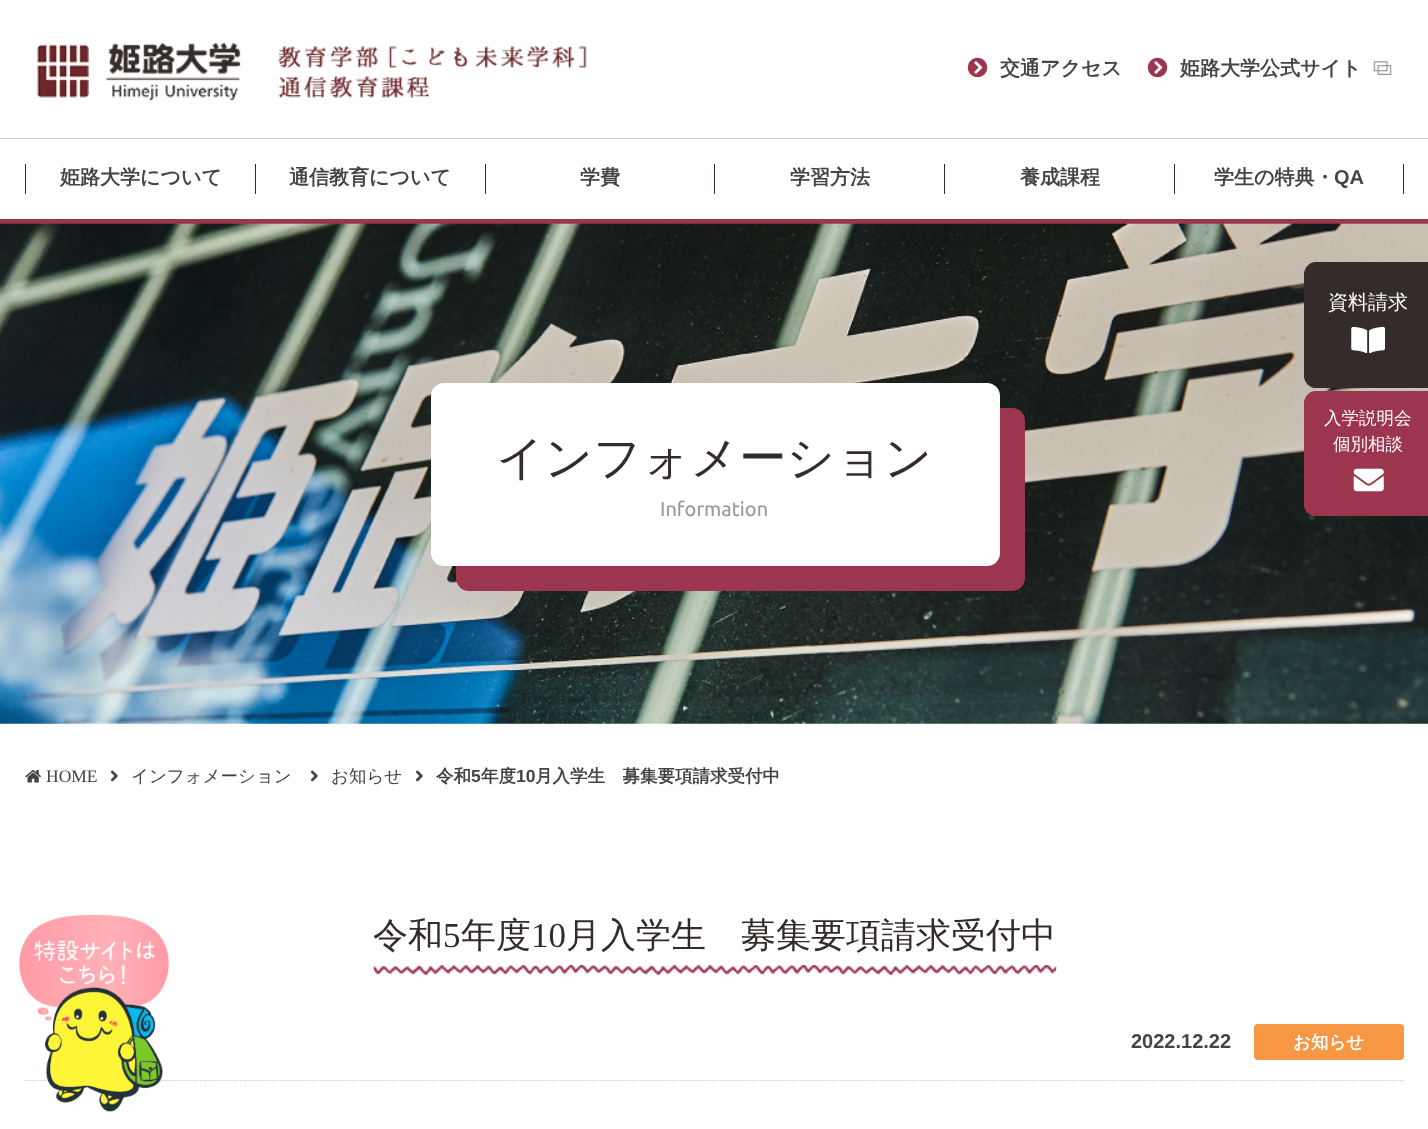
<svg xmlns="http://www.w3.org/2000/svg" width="1428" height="1129">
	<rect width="100%" height="100%" fill="#FFFFFF" />
	<rect x="0" y="138" width="1428" height="1" fill="#CCCCCC" />
	<image x="37" y="42" width="550" height="58" href="assets/img1.png" />
	<image x="967" y="57" width="21" height="21" href="assets/img2.png" />
	<text x="1000" y="75" font-family="WenQuanYi Zen Hei" font-size="20" font-weight="700" fill="#444444">交通アクセス</text>
	<image x="1147" y="57" width="21" height="21" href="assets/img2.png" />
	<text x="1180" y="75" font-family="WenQuanYi Zen Hei" font-size="20" font-weight="700" fill="#444444">姫路大学公式サイト</text>
	<image x="1373" y="61" width="19" height="14" href="assets/img3.png" />
	<rect x="0" y="219" width="1428" height="5" fill="#9C364F" />
	<rect x="25" y="164" width="1" height="30" fill="#342C2A" />
	<text x="60" y="184" font-family="WenQuanYi Zen Hei" font-size="20" font-weight="700" fill="#444444">姫路大学について</text>
	<rect x="255" y="164" width="1" height="30" fill="#342C2A" />
	<text x="289" y="184" font-family="WenQuanYi Zen Hei" font-size="20" font-weight="700" fill="#444444">通信教育について</text>
	<rect x="485" y="164" width="1" height="30" fill="#342C2A" />
	<text x="580" y="184" font-family="WenQuanYi Zen Hei" font-size="20" font-weight="700" fill="#444444">学費</text>
	<rect x="714" y="164" width="1" height="30" fill="#342C2A" />
	<text x="790" y="184" font-family="WenQuanYi Zen Hei" font-size="20" font-weight="700" fill="#444444">学習方法</text>
	<rect x="944" y="164" width="1" height="30" fill="#342C2A" />
	<text x="1020" y="184" font-family="WenQuanYi Zen Hei" font-size="20" font-weight="700" fill="#444444">養成課程</text>
	<rect x="1403" y="164" width="1" height="30" fill="#342C2A" />
	<rect x="1174" y="164" width="1" height="30" fill="#342C2A" />
	<text x="1214" y="184" font-family="WenQuanYi Zen Hei" font-size="20" font-weight="700" fill="#444444">学生の特典・</text>
	<text x="1334" y="184" font-family="Liberation Sans" font-size="20" font-weight="700" fill="#444444">QA</text>
	<image x="0" y="223" width="1428" height="501" href="assets/img6.png" />
	<path d="M1317 263H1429V388H1317C1310 388 1304 382 1304 375V276C1304 269 1310 263 1317 263Z" fill="#342C2A" />
	<path d="M1316 262H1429V388H1316C1309 388 1304 382 1304 375V275C1304 268 1309 262 1316 262ZM1316 266H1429V384H1316C1311 384 1308 380 1308 375V275C1308 270 1311 266 1316 266Z" fill="#342C2A" fill-rule="evenodd" />
	<text x="1328" y="309" font-family="WenQuanYi Zen Hei" font-size="20" font-weight="500" fill="#FFFFFF">資料請求</text>
	<image x="1351" y="326" width="34" height="28" href="assets/img4.png" />
	<path d="M1317 391H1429V516H1317C1310 516 1304 510 1304 503V404C1304 397 1310 391 1317 391Z" fill="#9C364F" />
	<path d="M1316 391H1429V516H1316C1309 516 1304 511 1304 504V404C1304 397 1309 391 1316 391ZM1316 395H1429V512H1316C1311 512 1308 509 1308 504V404C1308 399 1311 395 1316 395Z" fill="#9C364F" fill-rule="evenodd" />
	<g font-family="WenQuanYi Zen Hei" font-size="17.5" font-weight="500" fill="#FFFFFF">
		<text x="1324" y="424">入学説明会</text>
		<text x="1333" y="450">個別相談</text>
	</g>
	<image x="1353" y="468" width="31" height="24" href="assets/img5.png" />
	<rect x="456" y="408" width="569" height="183" rx="13" fill="#9C364F" />
	<rect x="431" y="383" width="569" height="183" rx="13" fill="#FFFFFF" />
	<text x="496" y="474" font-family="WenQuanYi Zen Hei" font-size="47.5" font-weight="500" fill="#342C2A">インフォメーション</text>
	<text x="660" y="516" font-family="Ubuntu" font-size="20" fill="#999999">Information</text>
	<image x="25" y="770" width="16" height="13" href="assets/img7.png" />
	<text x="46" y="782" font-family="Liberation Serif" font-size="17.5" fill="#444444">HOME</text>
	<image x="110" y="770" width="8" height="12" href="assets/img8.png" />
	<text x="131" y="782" font-family="WenQuanYi Zen Hei" font-size="17.5" font-weight="500" fill="#444444">インフォメーション</text>
	<image x="310" y="770" width="8" height="12" href="assets/img8.png" />
	<text x="331" y="782" font-family="WenQuanYi Zen Hei" font-size="17.5" font-weight="500" fill="#444444">お知らせ</text>
	<image x="415" y="770" width="8" height="12" href="assets/img8.png" />
	<text x="436" y="782" font-family="WenQuanYi Zen Hei" font-size="17.5" font-weight="700" fill="#444444">令和</text>
	<text x="471" y="782" font-family="Liberation Sans" font-size="17.5" font-weight="700" fill="#444444">5</text>
	<text x="481" y="782" font-family="WenQuanYi Zen Hei" font-size="17.5" font-weight="700" fill="#444444">年度</text>
	<text x="516" y="782" font-family="Liberation Sans" font-size="17.5" font-weight="700" fill="#444444">10</text>
	<text x="535" y="782" font-family="WenQuanYi Zen Hei" font-size="17.5" font-weight="700" fill="#444444">月入学生　募集要項請求受付中</text>
	<path d="M25 1080.5H1404" fill="none" stroke="#CCCCCC" stroke-width="1.2" stroke-dasharray="1.25 1.25" />
	<image x="18" y="914" width="151" height="198" href="assets/img9.png" />
	<text x="373" y="947" font-family="WenQuanYi Zen Hei" font-size="35" font-weight="500" fill="#342C2A">令和</text>
	<text x="443" y="947" font-family="Liberation Serif" font-size="35" fill="#342C2A">5</text>
	<text x="461" y="947" font-family="WenQuanYi Zen Hei" font-size="35" font-weight="500" fill="#342C2A">年度</text>
	<text x="531" y="947" font-family="Liberation Serif" font-size="35" fill="#342C2A">10</text>
	<text x="566" y="947" font-family="WenQuanYi Zen Hei" font-size="35" font-weight="500" fill="#342C2A">月入学生　募集要項請求受付中</text>
	<image x="373" y="965" width="684" height="10" href="assets/img10.png" />
	<text x="1131" y="1048" font-family="Liberation Sans" font-size="20" font-weight="700" fill="#444444">2022.12.22</text>
	<rect x="1254" y="1024" width="150" height="36" rx="4" fill="#F79743" />
	<text x="1293" y="1048" font-family="WenQuanYi Zen Hei" font-size="17.5" font-weight="700" fill="#FFFFFF">お知らせ</text>
</svg>
